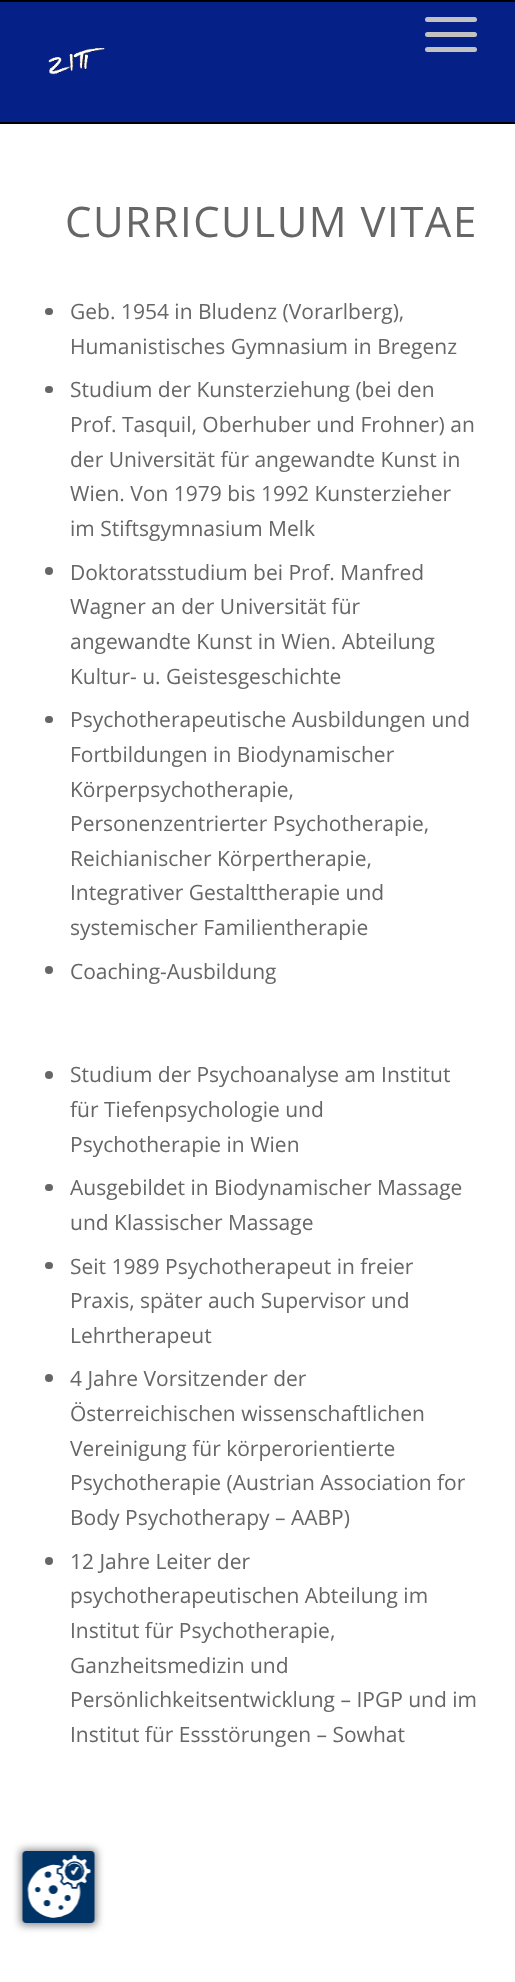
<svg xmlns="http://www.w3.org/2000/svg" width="515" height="1982">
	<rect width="100%" height="100%" fill="#FFFFFF" />
	<rect x="0" y="0" width="515" height="2" fill="#000000" />
	<rect x="0" y="122" width="515" height="2" fill="#000000" />
	<rect x="0" y="2" width="515" height="120" fill="#052187" />
	<rect x="425" y="32" width="52" height="5" rx="2.5" fill="#C2C2C2" />
	<rect x="425" y="17" width="52" height="5" rx="2.5" fill="#C2C2C2" />
	<rect x="425" y="47" width="52" height="5" rx="2.5" fill="#C2C2C2" />
	<image x="48" y="48" width="57" height="27" href="assets/img1.png" />
	<text x="65" y="237" font-family="Open Sans" font-size="42" letter-spacing="1.5" fill="#666666">CURRICULUM VITAE</text>
	<rect x="45" y="308" width="8" height="7" rx="3.5" fill="#666666" />
	<g font-family="Open Sans" font-size="21" fill="#666666">
		<text x="70" y="319">Geb. 1954 in Bludenz (Vorarlberg),</text>
		<text x="70" y="354">Humanistisches Gymnasium in Bregenz</text>
	</g>
	<rect x="45" y="386" width="8" height="7" rx="3.5" fill="#666666" />
	<g font-family="Open Sans" font-size="21" fill="#666666">
		<text x="70" y="397">Studium der Kunsterziehung (bei den</text>
		<text x="70" y="432">Prof. Tasquil, Oberhuber und Frohner) an</text>
		<text x="70" y="467">der Universität für angewandte Kunst in</text>
		<text x="70" y="501">Wien. Von 1979 bis 1992 Kunsterzieher</text>
		<text x="70" y="536">im Stiftsgymnasium Melk</text>
	</g>
	<circle cx="49" cy="571" r="4" fill="#666666" />
	<g font-family="Open Sans" font-size="21" fill="#666666">
		<text x="70" y="580">Doktoratsstudium bei Prof. Manfred</text>
		<text x="70" y="614">Wagner an der Universität für</text>
		<text x="70" y="649">angewandte Kunst in Wien. Abteilung</text>
		<text x="70" y="684">Kultur- u. Geistesgeschichte</text>
	</g>
	<rect x="45" y="716" width="8" height="7" rx="3.5" fill="#666666" />
	<g font-family="Open Sans" font-size="21" fill="#666666">
		<text x="70" y="727">Psychotherapeutische Ausbildungen und</text>
		<text x="70" y="762">Fortbildungen in Biodynamischer</text>
		<text x="70" y="797">Körperpsychotherapie,</text>
		<text x="70" y="831">Personenzentrierter Psychotherapie,</text>
		<text x="70" y="866">Reichianischer Körpertherapie,</text>
		<text x="70" y="900">Integrativer Gestalttherapie und</text>
		<text x="70" y="935">systemischer Familientherapie</text>
	</g>
	<circle cx="49" cy="970" r="4" fill="#666666" />
	<text x="70" y="979" font-family="Open Sans" font-size="21" fill="#666666">Coaching-Ausbildung</text>
	<circle cx="49" cy="1075" r="4" fill="#666666" />
	<g font-family="Open Sans" font-size="21" fill="#666666">
		<text x="70" y="1082">Studium der Psychoanalyse am Institut</text>
		<text x="70" y="1117">für Tiefenpsychologie und</text>
		<text x="70" y="1152">Psychotherapie in Wien</text>
	</g>
	<rect x="45" y="1184" width="8" height="7" rx="3.5" fill="#666666" />
	<g font-family="Open Sans" font-size="21" fill="#666666">
		<text x="70" y="1195">Ausgebildet in Biodynamischer Massage</text>
		<text x="70" y="1230">und Klassischer Massage</text>
	</g>
	<rect x="45" y="1262" width="8" height="7" rx="3.5" fill="#666666" />
	<g font-family="Open Sans" font-size="21" fill="#666666">
		<text x="70" y="1274">Seit 1989 Psychotherapeut in freier</text>
		<text x="70" y="1308">Praxis, später auch Supervisor und</text>
		<text x="70" y="1343">Lehrtherapeut</text>
	</g>
	<circle cx="49" cy="1378" r="4" fill="#666666" />
	<g font-family="Open Sans" font-size="21" fill="#666666">
		<text x="70" y="1386">4 Jahre Vorsitzender der</text>
		<text x="70" y="1421">Österreichischen wissenschaftlichen</text>
		<text x="70" y="1456">Vereinigung für körperorientierte</text>
		<text x="70" y="1490">Psychotherapie (Austrian Association for</text>
		<text x="70" y="1525">Body Psychotherapy – AABP)</text>
	</g>
	<circle cx="49" cy="1561" r="4" fill="#666666" />
	<g font-family="Open Sans" font-size="21" fill="#666666">
		<text x="70" y="1569">12 Jahre Leiter der</text>
		<text x="70" y="1603">psychotherapeutischen Abteilung im</text>
		<text x="70" y="1638">Institut für Psychotherapie,</text>
		<text x="70" y="1673">Ganzheitsmedizin und</text>
		<text x="70" y="1707">Persönlichkeitsentwicklung – IPGP und im</text>
		<text x="70" y="1742">Institut für Essstörungen – Sowhat</text>
	</g>
	<rect x="21" y="1850" width="75" height="75" fill="#000000" fill-opacity="0.5" filter="blur(4.5px)" />
	<image x="22" y="1851" width="73" height="72" href="assets/img2.png" />
</svg>
